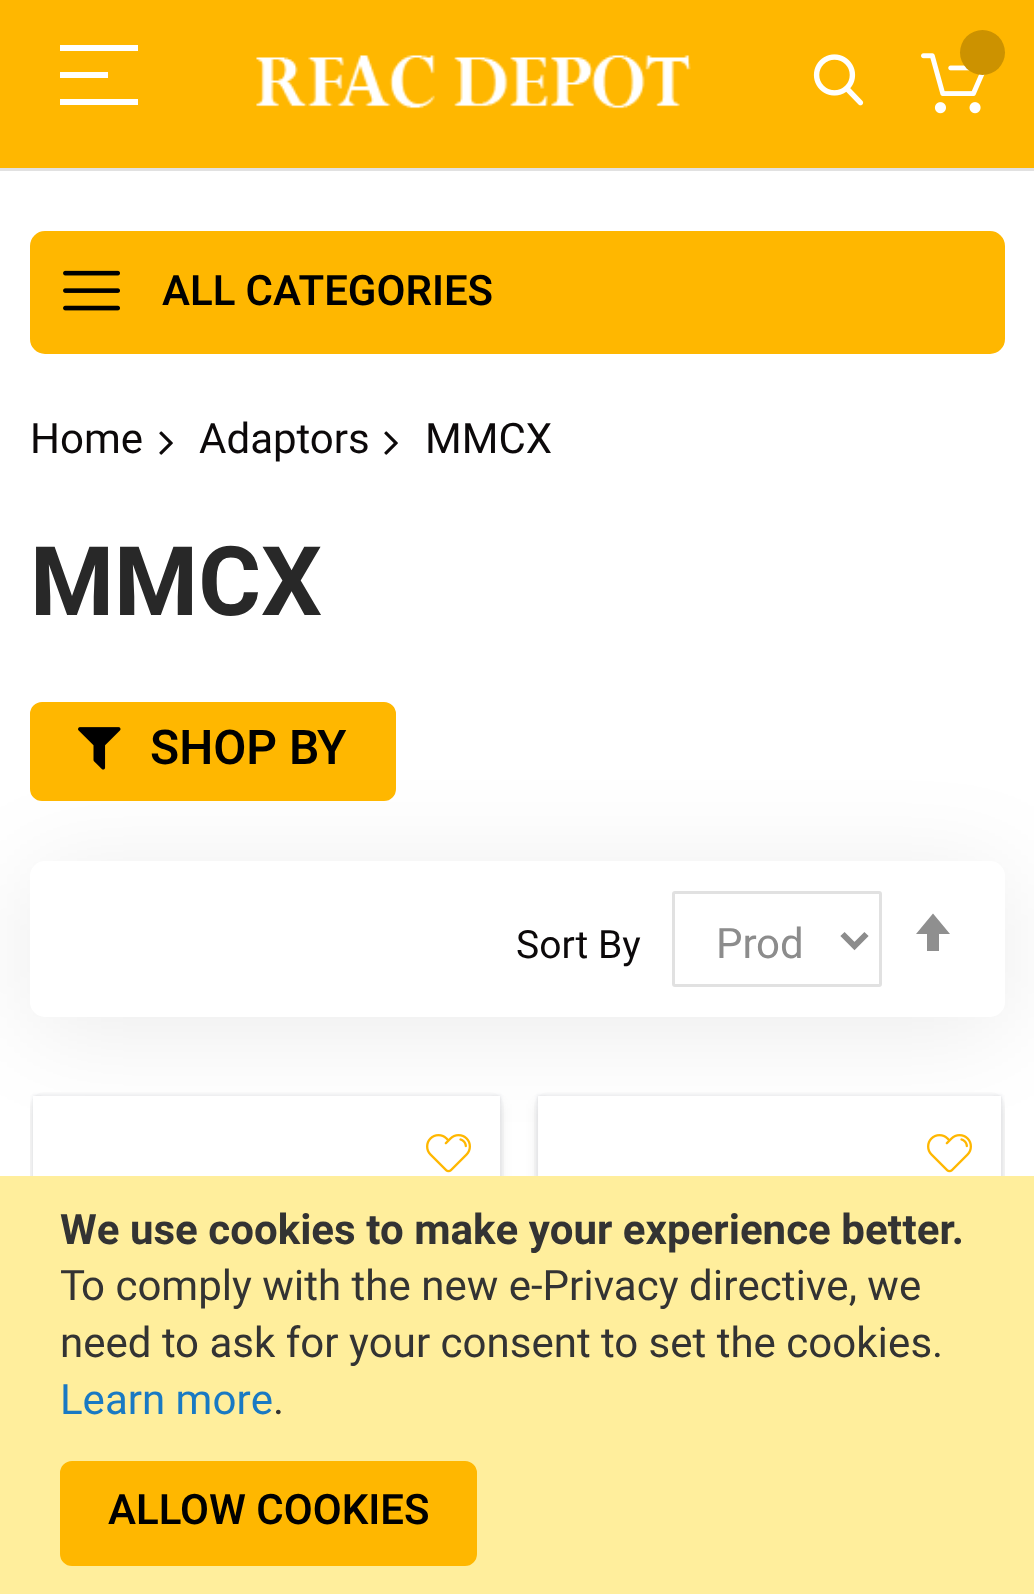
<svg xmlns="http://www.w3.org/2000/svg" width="1034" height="1594">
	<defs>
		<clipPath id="clip1"><rect x="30" y="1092" width="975" height="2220" /></clipPath>
	</defs>
	<rect width="100%" height="100%" fill="#FFFFFF" />
	<rect x="0" y="0" width="1034" height="168" fill="#FFB700" />
	<rect x="0" y="168" width="1034" height="3" fill="#E1E1E1" />
	<rect x="60" y="45" width="78" height="6" fill="#FFFFFF" />
	<rect x="60" y="99" width="78" height="6" fill="#FFFFFF" />
	<rect x="60" y="72" width="48" height="6" fill="#FFFFFF" />
	<image x="256" y="55" width="435" height="54" href="assets/img1.png" />
	<image x="813" y="54" width="51" height="52" href="assets/img2.png" />
	<image x="921" y="53" width="64" height="61" href="assets/img3.png" />
	<circle cx="982.5" cy="52.5" r="22.5" fill="#CC9200" />
	<rect x="31.5" y="232.5" width="972" height="120" rx="13.5" fill="#FFB700" stroke="#FFB700" stroke-width="3" />
	<image x="63" y="270" width="57" height="41" href="assets/img4.png" />
	<text x="162" y="305" font-family="Heebo" font-size="42" font-weight="600" fill="#000000">ALL CATEGORIES</text>
	<text x="30" y="453" font-family="Heebo" font-size="42" fill="#0C090A">Home</text>
	<image x="159" y="431" width="14" height="24" href="assets/img5.png" />
	<text x="199" y="453" font-family="Heebo" font-size="42" fill="#0C090A">Adaptors</text>
	<image x="384" y="431" width="14" height="24" href="assets/img5.png" />
	<text x="425" y="453" font-family="Heebo" font-size="42" fill="#0C090A">MMCX</text>
	<text x="30" y="615" font-family="Heebo" font-size="96" font-weight="700" fill="#282828">MMCX</text>
	<rect x="30" y="873" width="975" height="156" rx="15" fill="#000000" fill-opacity="0.08" filter="blur(51px)" />
	<rect x="31.5" y="703.5" width="363" height="96" rx="10.5" fill="#FFB700" stroke="#FFB700" stroke-width="3" />
	<image x="78" y="727" width="43" height="43" href="assets/img6.png" />
	<text x="150" y="764" font-family="Heebo" font-size="48" font-weight="600" fill="#000000">SHOP BY</text>
	<rect x="30" y="861" width="975" height="156" rx="15" fill="#FFFFFF" />
	<text x="516" y="958" font-family="Heebo" font-size="39" fill="#0C090A">Sort By</text>
	<rect x="673.5" y="892.5" width="207" height="93" rx="1.5" fill="none" stroke="#E1E1E1" stroke-width="3" />
	<path d="M842.5 934L854.5 946L866.5 934" fill="none" stroke="#8C8C8C" stroke-width="6" />
	<text x="716" y="958" font-family="Heebo" font-size="42" fill="#8C8C8C">Prod</text>
	<path d="M933 913.5L916 934H927V951H939V934H950Z" fill="#8F8F8F" />
	<rect x="31.5" y="1093.5" width="471" height="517" rx="13.5" fill="none" stroke="#FAFAFA" stroke-width="3" />
	<rect x="33" y="1095" width="468" height="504" fill="#0A1F44" fill-opacity="0.08" filter="blur(1.5px)" />
	<g clip-path="url(#clip1)">
		<rect x="33" y="1104" width="468" height="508" fill="#232323" fill-opacity="0.1" filter="blur(6px)" />
	</g>
	<image x="33" y="1096" width="467" height="80" href="assets/img7.png" />
	<image x="426" y="1134" width="45" height="39" href="assets/img8.png" />
	<rect x="535.5" y="1093.5" width="468" height="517" rx="13.5" fill="none" stroke="#FAFAFA" stroke-width="3" />
	<rect x="537" y="1095" width="465" height="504" fill="#0A1F44" fill-opacity="0.08" filter="blur(1.5px)" />
	<g clip-path="url(#clip1)">
		<rect x="537" y="1104" width="465" height="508" fill="#232323" fill-opacity="0.1" filter="blur(6px)" />
	</g>
	<image x="538" y="1096" width="463" height="80" href="assets/img9.png" />
	<image x="927" y="1134" width="45" height="39" href="assets/img8.png" />
	<rect x="0" y="1176" width="1034" height="418" fill="#FFEE9C" />
	<text x="60" y="1244" font-family="Heebo" font-size="42" font-weight="700" fill="#333333">We use cookies to make your experience better.</text>
	<g font-family="Heebo" font-size="42" fill="#333333">
		<text x="60" y="1300">To comply with the new e-Privacy directive, we</text>
		<text x="60" y="1357">need to ask for your consent to set the cookies.</text>
	</g>
	<text x="60" y="1414" font-family="Heebo" font-size="42" fill="#1979C3">Learn more</text>
	<text x="273" y="1414" font-family="Heebo" font-size="42" fill="#333333">.</text>
	<rect x="61.5" y="1462.5" width="414" height="102" rx="10.5" fill="#FFB700" stroke="#FFB700" stroke-width="3" />
	<text x="108" y="1524" font-family="Heebo" font-size="42" font-weight="600" fill="#000000">ALLOW COOKIES</text>
</svg>
